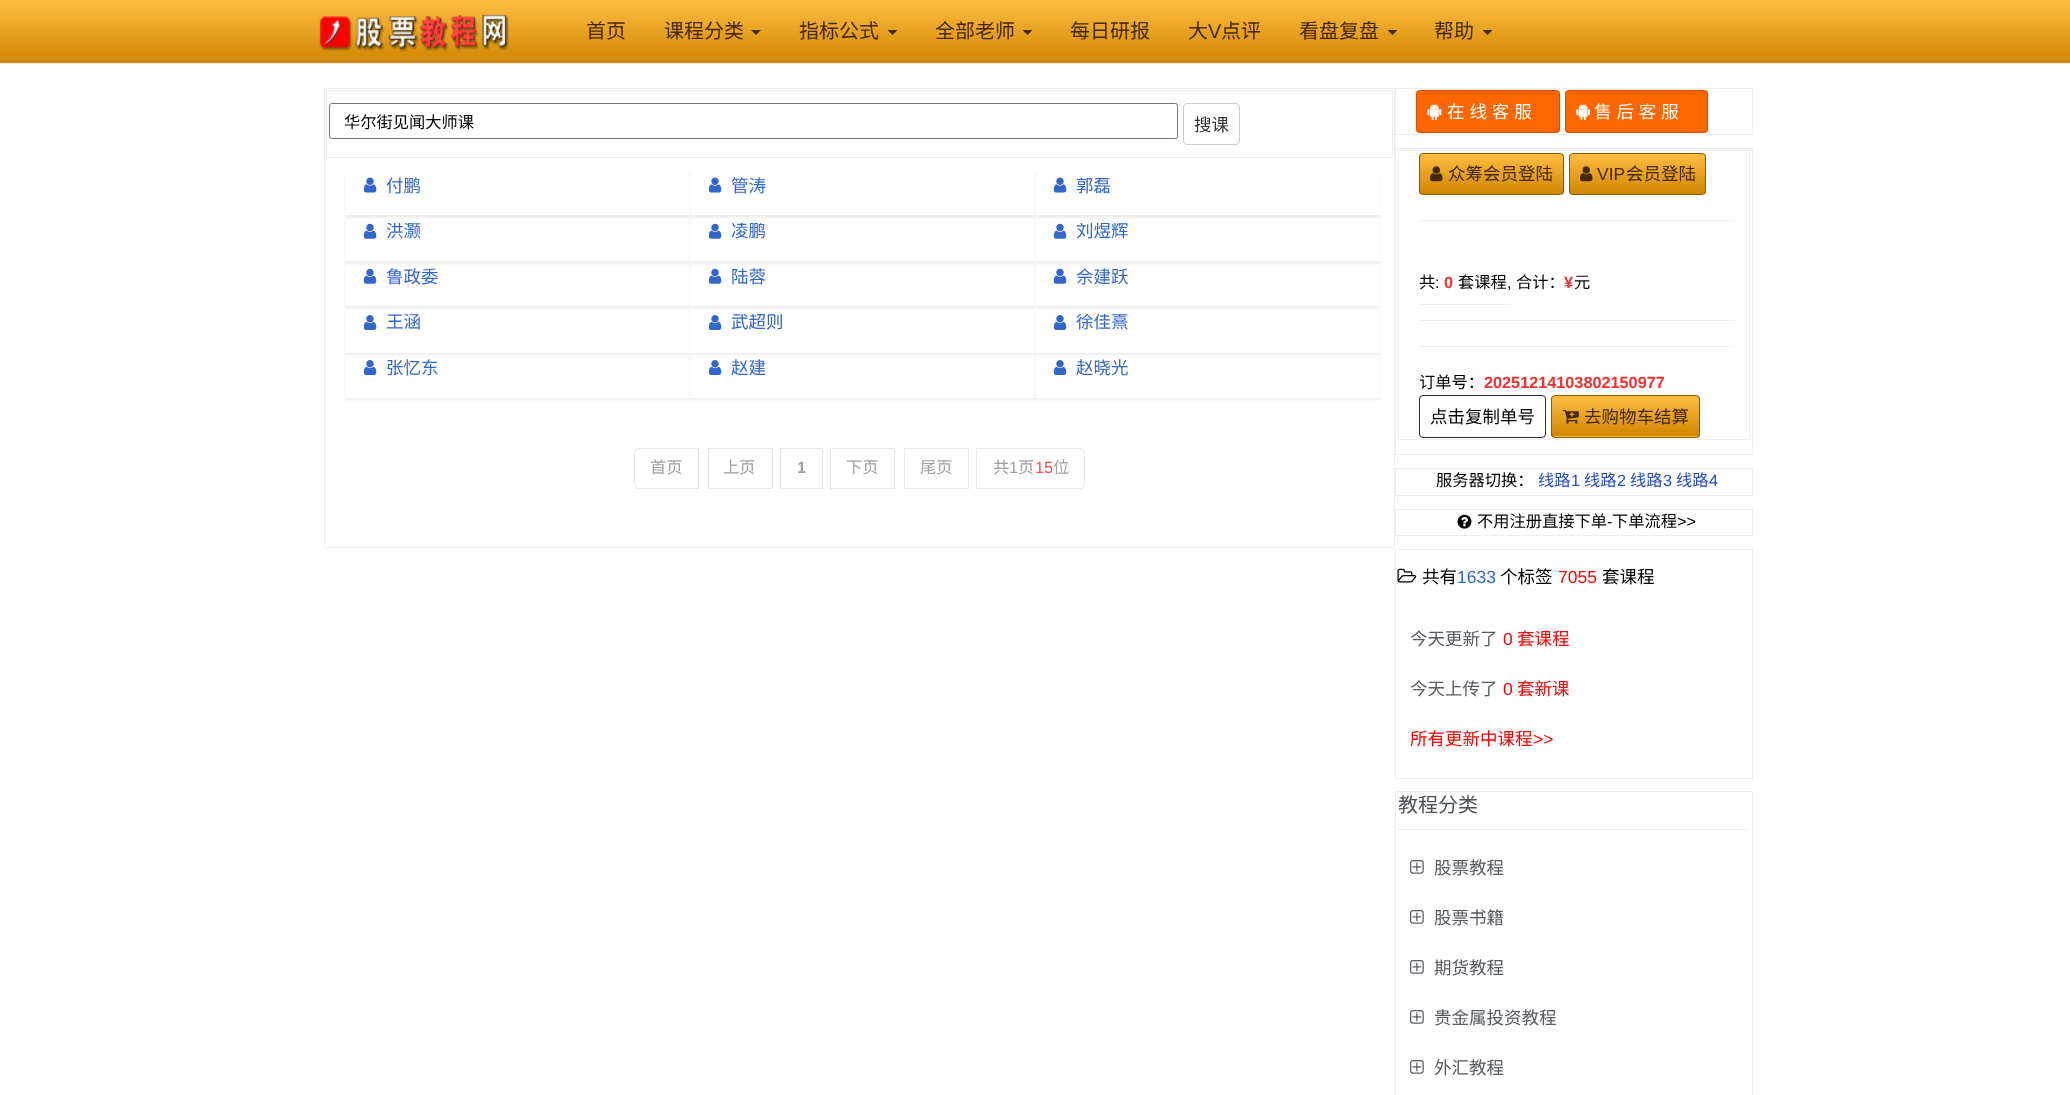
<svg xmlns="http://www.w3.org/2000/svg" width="2070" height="1095">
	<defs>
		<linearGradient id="g1" gradientUnits="userSpaceOnUse" x1="1035" y1="0" x2="1035" y2="63"><stop offset="0" stop-color="#FFBD43" /><stop offset="1" stop-color="#D08700" /></linearGradient>
		<clipPath id="clip1"><path d="M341 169H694V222H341ZM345 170H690V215H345Z" clip-rule="evenodd" /></clipPath>
		<clipPath id="clip2"><path d="M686 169H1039V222H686ZM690 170H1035V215H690Z" clip-rule="evenodd" /></clipPath>
		<clipPath id="clip3"><path d="M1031 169H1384V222H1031ZM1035 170H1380V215H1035Z" clip-rule="evenodd" /></clipPath>
		<clipPath id="clip4"><path d="M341 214H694V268H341ZM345 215H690V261H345Z" clip-rule="evenodd" /></clipPath>
		<clipPath id="clip5"><rect x="364" y="223" width="215" height="31" /></clipPath>
		<clipPath id="clip6"><path d="M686 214H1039V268H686ZM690 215H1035V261H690Z" clip-rule="evenodd" /></clipPath>
		<clipPath id="clip7"><rect x="709" y="223" width="215" height="31" /></clipPath>
		<clipPath id="clip8"><path d="M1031 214H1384V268H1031ZM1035 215H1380V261H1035Z" clip-rule="evenodd" /></clipPath>
		<clipPath id="clip9"><rect x="1054" y="223" width="216" height="31" /></clipPath>
		<clipPath id="clip10"><path d="M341 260H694V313H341ZM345 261H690V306H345Z" clip-rule="evenodd" /></clipPath>
		<clipPath id="clip11"><path d="M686 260H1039V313H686ZM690 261H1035V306H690Z" clip-rule="evenodd" /></clipPath>
		<clipPath id="clip12"><path d="M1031 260H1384V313H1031ZM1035 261H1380V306H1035Z" clip-rule="evenodd" /></clipPath>
		<clipPath id="clip13"><path d="M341 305H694V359H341ZM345 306H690V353H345Z" clip-rule="evenodd" /></clipPath>
		<clipPath id="clip14"><path d="M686 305H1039V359H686ZM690 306H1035V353H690Z" clip-rule="evenodd" /></clipPath>
		<clipPath id="clip15"><rect x="709" y="314" width="215" height="31" /></clipPath>
		<clipPath id="clip16"><path d="M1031 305H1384V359H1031ZM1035 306H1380V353H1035Z" clip-rule="evenodd" /></clipPath>
		<clipPath id="clip17"><rect x="1054" y="314" width="216" height="31" /></clipPath>
		<clipPath id="clip18"><path d="M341 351H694V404H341ZM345 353H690V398H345Z" clip-rule="evenodd" /></clipPath>
		<clipPath id="clip19"><path d="M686 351H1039V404H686ZM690 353H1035V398H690Z" clip-rule="evenodd" /></clipPath>
		<clipPath id="clip20"><path d="M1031 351H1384V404H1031ZM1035 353H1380V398H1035Z" clip-rule="evenodd" /></clipPath>
		<clipPath id="clip21"><rect x="1419" y="153" width="145" height="42" rx="4" /></clipPath>
		<linearGradient id="g2" gradientUnits="userSpaceOnUse" x1="1491" y1="154" x2="1491" y2="194"><stop offset="0" stop-color="#FFBD43" /><stop offset="1" stop-color="#D08700" /></linearGradient>
		<clipPath id="clip22"><rect x="1569" y="153" width="137" height="42" rx="4" /></clipPath>
		<linearGradient id="g3" gradientUnits="userSpaceOnUse" x1="1638" y1="154" x2="1638" y2="194"><stop offset="0" stop-color="#FFBD43" /><stop offset="1" stop-color="#D08700" /></linearGradient>
		<clipPath id="clip23"><rect x="1551" y="395" width="149" height="43" rx="4" /></clipPath>
		<linearGradient id="g4" gradientUnits="userSpaceOnUse" x1="1626" y1="396" x2="1626" y2="436"><stop offset="0" stop-color="#FFBD43" /><stop offset="1" stop-color="#D08700" /></linearGradient>
		<linearGradient id="g5" gradientUnits="userSpaceOnUse" x1="1626" y1="436" x2="1626" y2="476"><stop offset="0" stop-color="#FFBD43" /><stop offset="1" stop-color="#D08700" /></linearGradient>
	</defs>
	<rect width="100%" height="100%" fill="#FFFFFF" />
	<rect x="0" y="0" width="2070" height="63" fill="url(#g1)" />
	<rect x="0" y="63" width="2070" height="1" fill="#E7E7E7" />
	<image x="319" y="14" width="190" height="38" href="assets/img1.png" />
	<g font-family="Noto Sans CJK SC" font-size="20" fill="#452700">
		<text x="586" y="38">首页</text>
		<text x="664" y="38">课程分类</text>
	</g>
	<path d="M751 30H761L756 35Z" fill="#452700" />
	<text x="799" y="38" font-family="Noto Sans CJK SC" font-size="20" fill="#452700">指标公式</text>
	<path d="M887.5 30H897.5L892.5 35Z" fill="#452700" />
	<text x="935" y="38" font-family="Noto Sans CJK SC" font-size="20" fill="#452700">全部老师</text>
	<path d="M1022.5 30H1032.5L1027.5 35Z" fill="#452700" />
	<g font-family="Noto Sans CJK SC" font-size="20" fill="#452700">
		<text x="1070" y="38">每日研报</text>
		<text x="1188" y="38">大</text>
	</g>
	<text x="1208" y="38" font-family="Liberation Sans" font-size="20" fill="#452700">V</text>
	<g font-family="Noto Sans CJK SC" font-size="20" fill="#452700">
		<text x="1221" y="38">点评</text>
		<text x="1299" y="38">看盘复盘</text>
	</g>
	<path d="M1387.5 30H1397.5L1392.5 35Z" fill="#452700" />
	<text x="1434" y="38" font-family="Noto Sans CJK SC" font-size="20" fill="#452700">帮助</text>
	<path d="M1482.5 30H1492.5L1487.5 35Z" fill="#452700" />
	<rect x="324.5" y="88.5" width="1070" height="459" fill="none" stroke="#EEEEEE" />
	<rect x="326.5" y="90.5" width="1066" height="67" fill="none" stroke="#EEEEEE" />
	<rect x="329.5" y="103.5" width="848" height="35" rx="2" fill="none" stroke="#767676" />
	<text x="344" y="128" font-family="Noto Sans CJK SC" font-size="16.25" fill="#000000">华尔街见闻大师课</text>
	<rect x="1183.5" y="103.5" width="56" height="41" rx="3.5" fill="none" stroke="#CCCCCC" />
	<text x="1194" y="131" font-family="Noto Sans CJK SC" font-size="17.5" fill="#333333">搜课</text>
	<g clip-path="url(#clip1)">
		<rect x="345" y="173" width="345" height="45" fill="#EEEEEE" filter="blur(1px)" />
	</g>
	<image x="364" y="177" width="13" height="16" href="assets/img2.png" />
	<text x="386" y="192" font-family="Noto Sans CJK SC" font-size="17.5" fill="#3366CC">付鹏</text>
	<g clip-path="url(#clip2)">
		<rect x="690" y="173" width="345" height="45" fill="#EEEEEE" filter="blur(1px)" />
	</g>
	<image x="709" y="177" width="13" height="16" href="assets/img2.png" />
	<text x="731" y="192" font-family="Noto Sans CJK SC" font-size="17.5" fill="#3366CC">管涛</text>
	<g clip-path="url(#clip3)">
		<rect x="1035" y="173" width="345" height="45" fill="#EEEEEE" filter="blur(1px)" />
	</g>
	<image x="1054" y="177" width="13" height="16" href="assets/img2.png" />
	<text x="1076" y="192" font-family="Noto Sans CJK SC" font-size="17.5" fill="#3366CC">郭磊</text>
	<g clip-path="url(#clip4)">
		<rect x="345" y="218" width="345" height="46" fill="#EEEEEE" filter="blur(1px)" />
	</g>
	<image x="364" y="223" width="13" height="16" href="assets/img3.png" />
	<g clip-path="url(#clip5)">
		<text x="386" y="237" font-family="Noto Sans CJK SC" font-size="17.5" fill="#3366CC">洪灏</text>
	</g>
	<g clip-path="url(#clip6)">
		<rect x="690" y="218" width="345" height="46" fill="#EEEEEE" filter="blur(1px)" />
	</g>
	<image x="709" y="223" width="13" height="16" href="assets/img3.png" />
	<g clip-path="url(#clip7)">
		<text x="731" y="237" font-family="Noto Sans CJK SC" font-size="17.5" fill="#3366CC">凌鹏</text>
	</g>
	<g clip-path="url(#clip8)">
		<rect x="1035" y="218" width="345" height="46" fill="#EEEEEE" filter="blur(1px)" />
	</g>
	<image x="1054" y="223" width="13" height="16" href="assets/img3.png" />
	<g clip-path="url(#clip9)">
		<text x="1076" y="237" font-family="Noto Sans CJK SC" font-size="17.5" fill="#3366CC">刘煜辉</text>
	</g>
	<g clip-path="url(#clip10)">
		<rect x="345" y="264" width="345" height="45" fill="#EEEEEE" filter="blur(1px)" />
	</g>
	<image x="364" y="268" width="13" height="16" href="assets/img3.png" />
	<text x="386" y="283" font-family="Noto Sans CJK SC" font-size="17.5" fill="#3366CC">鲁政委</text>
	<g clip-path="url(#clip11)">
		<rect x="690" y="264" width="345" height="45" fill="#EEEEEE" filter="blur(1px)" />
	</g>
	<image x="709" y="268" width="13" height="16" href="assets/img3.png" />
	<text x="731" y="283" font-family="Noto Sans CJK SC" font-size="17.5" fill="#3366CC">陆蓉</text>
	<g clip-path="url(#clip12)">
		<rect x="1035" y="264" width="345" height="45" fill="#EEEEEE" filter="blur(1px)" />
	</g>
	<image x="1054" y="268" width="13" height="16" href="assets/img3.png" />
	<text x="1076" y="283" font-family="Noto Sans CJK SC" font-size="17.5" fill="#3366CC">佘建跃</text>
	<g clip-path="url(#clip13)">
		<rect x="345" y="309" width="345" height="46" fill="#EEEEEE" filter="blur(1px)" />
	</g>
	<image x="364" y="315" width="13" height="15" href="assets/img4.png" />
	<text x="386" y="328" font-family="Noto Sans CJK SC" font-size="17.5" fill="#3366CC">王涵</text>
	<g clip-path="url(#clip14)">
		<rect x="690" y="309" width="345" height="46" fill="#EEEEEE" filter="blur(1px)" />
	</g>
	<image x="709" y="315" width="13" height="15" href="assets/img4.png" />
	<g clip-path="url(#clip15)">
		<text x="731" y="328" font-family="Noto Sans CJK SC" font-size="17.5" fill="#3366CC">武超则</text>
	</g>
	<g clip-path="url(#clip16)">
		<rect x="1035" y="309" width="345" height="46" fill="#EEEEEE" filter="blur(1px)" />
	</g>
	<image x="1054" y="315" width="13" height="15" href="assets/img4.png" />
	<g clip-path="url(#clip17)">
		<text x="1076" y="328" font-family="Noto Sans CJK SC" font-size="17.5" fill="#3366CC">徐佳熹</text>
	</g>
	<g clip-path="url(#clip18)">
		<rect x="345" y="355" width="345" height="45" fill="#EEEEEE" filter="blur(1px)" />
	</g>
	<image x="364" y="360" width="13" height="15" href="assets/img4.png" />
	<text x="386" y="374" font-family="Noto Sans CJK SC" font-size="17.5" fill="#3366CC">张忆东</text>
	<g clip-path="url(#clip19)">
		<rect x="690" y="355" width="345" height="45" fill="#EEEEEE" filter="blur(1px)" />
	</g>
	<image x="709" y="360" width="13" height="15" href="assets/img4.png" />
	<text x="731" y="374" font-family="Noto Sans CJK SC" font-size="17.5" fill="#3366CC">赵建</text>
	<g clip-path="url(#clip20)">
		<rect x="1035" y="355" width="345" height="45" fill="#EEEEEE" filter="blur(1px)" />
	</g>
	<image x="1054" y="360" width="13" height="15" href="assets/img4.png" />
	<text x="1076" y="374" font-family="Noto Sans CJK SC" font-size="17.5" fill="#3366CC">赵晓光</text>
	<path d="M639 448.5H698.5V488.5H639C636.5 488.5 634.5 486.5 634.5 484V453C634.5 450.5 636.5 448.5 639 448.5Z" fill="none" stroke="#E7E7E7" />
	<text x="650" y="473" font-family="Noto Sans CJK SC" font-size="16.25" fill="#A0A0A0">首页</text>
	<rect x="708.5" y="448.5" width="64" height="40" fill="none" stroke="#E7E7E7" />
	<text x="723" y="473" font-family="Noto Sans CJK SC" font-size="16.25" fill="#A0A0A0">上页</text>
	<rect x="780.5" y="448.5" width="42" height="40" fill="none" stroke="#E7E7E7" />
	<text x="797" y="473" font-family="Liberation Sans" font-size="16.25" font-weight="700" fill="#A0A0A0">1</text>
	<rect x="830.5" y="448.5" width="64" height="40" fill="none" stroke="#E7E7E7" />
	<text x="846" y="473" font-family="Noto Sans CJK SC" font-size="16.25" fill="#A0A0A0">下页</text>
	<rect x="904.5" y="448.5" width="64" height="40" fill="none" stroke="#E7E7E7" />
	<text x="920" y="473" font-family="Noto Sans CJK SC" font-size="16.25" fill="#A0A0A0">尾页</text>
	<path d="M976.5 448.5H1080C1082.5 448.5 1084.5 450.5 1084.5 453V484C1084.5 486.5 1082.5 488.5 1080 488.5H976.5Z" fill="none" stroke="#E7E7E7" />
	<text x="993" y="473" font-family="Noto Sans CJK SC" font-size="16.25" fill="#A0A0A0">共</text>
	<text x="1009" y="473" font-family="Liberation Sans" font-size="16.25" fill="#A0A0A0">1</text>
	<text x="1018" y="473" font-family="Noto Sans CJK SC" font-size="16.25" fill="#A0A0A0">页</text>
	<text x="1035" y="473" font-family="Liberation Sans" font-size="16.25" fill="#FF4D4D">15</text>
	<text x="1053" y="473" font-family="Noto Sans CJK SC" font-size="16.25" fill="#A0A0A0">位</text>
	<rect x="1395.5" y="88.5" width="357" height="46" fill="none" stroke="#EEEEEE" />
	<rect x="1416" y="90" width="144" height="43" rx="4" fill="#FF6600" />
	<rect x="1416.5" y="90.5" width="143" height="42" rx="3.5" fill="none" stroke="#000000" stroke-opacity="0.2" />
	<image x="1427" y="103" width="15" height="17" href="assets/img5.png" />
	<text x="1447" y="118" word-spacing="1" font-family="Noto Sans CJK SC" font-size="17.5" fill="#FFFFFF">在 线 客 服</text>
	<rect x="1565" y="90" width="143" height="43" rx="4" fill="#FF6600" />
	<rect x="1565.5" y="90.5" width="142" height="42" rx="3.5" fill="none" stroke="#000000" stroke-opacity="0.2" />
	<image x="1576" y="103" width="14" height="17" href="assets/img6.png" />
	<text x="1594" y="118" word-spacing="1" font-family="Noto Sans CJK SC" font-size="17.5" fill="#FFFFFF">售 后 客 服</text>
	<rect x="1395.5" y="148.5" width="357" height="306" fill="none" stroke="#EEEEEE" />
	<rect x="1398.5" y="150.5" width="351" height="289" fill="none" stroke="#EEEEEE" />
	<g clip-path="url(#clip21)">
		<rect x="1419" y="154" width="145" height="40" fill="url(#g2)" />
	</g>
	<rect x="1419.5" y="153.5" width="144" height="41" rx="3.5" fill="none" stroke="#8A5900" />
	<image x="1430" y="166" width="13" height="16" href="assets/img7.png" />
	<text x="1448" y="180" font-family="Noto Sans CJK SC" font-size="17.5" fill="#452700">众筹会员登陆</text>
	<g clip-path="url(#clip22)">
		<rect x="1569" y="154" width="137" height="40" fill="url(#g3)" />
	</g>
	<rect x="1569.5" y="153.5" width="136" height="41" rx="3.5" fill="none" stroke="#8A5900" />
	<image x="1580" y="166" width="13" height="16" href="assets/img7.png" />
	<text x="1597" y="180" font-family="Liberation Sans" font-size="17.5" fill="#452700">VIP</text>
	<text x="1626" y="180" font-family="Noto Sans CJK SC" font-size="17.5" fill="#452700">会员登陆</text>
	<rect x="1419" y="220" width="316" height="1" fill="#EEEEEE" />
	<g font-family="Noto Sans CJK SC" font-size="16.25" fill="#000000">
		<text x="1419" y="288">共</text>
		<text x="1516" y="288">合计：</text>
	</g>
	<text x="1564" y="288" font-family="Liberation Sans" font-size="16.25" font-weight="700" fill="#F53030">¥</text>
	<text x="1574" y="288" font-family="Noto Sans CJK SC" font-size="16.25" fill="#000000">元</text>
	<rect x="1419" y="320" width="316" height="1" fill="#EEEEEE" />
	<rect x="1419" y="346" width="316" height="1" fill="#EEEEEE" />
	<text x="1419" y="388" font-family="Noto Sans CJK SC" font-size="16.25" fill="#000000">订单号：</text>
	<text x="1484" y="388" font-family="Liberation Sans" font-size="16.25" font-weight="700" fill="#F53030">20251214103802150977</text>
	<rect x="1419.5" y="395.5" width="126" height="42" rx="3.5" fill="none" stroke="#2A2929" />
	<text x="1430" y="423" font-family="Noto Sans CJK SC" font-size="17.5" fill="#000000">点击复制单号</text>
	<text x="1435" y="288" font-family="Liberation Sans" font-size="16.25" fill="#000000">:</text>
	<text x="1444" y="288" font-family="Liberation Sans" font-size="16.25" font-weight="700" fill="#F53030">0</text>
	<text x="1458" y="288" font-family="Noto Sans CJK SC" font-size="16.25" fill="#000000">套课程</text>
	<text x="1507" y="288" font-family="Liberation Sans" font-size="16.25" fill="#000000">,</text>
	<rect x="1419" y="304" width="92" height="1" fill="#EEEEEE" />
	<g clip-path="url(#clip23)">
		<rect x="1551" y="396" width="149" height="40" fill="url(#g4)" />
		<rect x="1551" y="436" width="149" height="2" fill="url(#g5)" />
	</g>
	<rect x="1551.5" y="395.5" width="148" height="42" rx="3.5" fill="none" stroke="#8A5900" />
	<image x="1562" y="410" width="17" height="14" href="assets/img8.png" />
	<text x="1584" y="423" font-family="Noto Sans CJK SC" font-size="17.5" fill="#452700">去购物车结算</text>
	<rect x="1395.5" y="468.5" width="357" height="27" fill="none" stroke="#EEEEEE" />
	<text x="1436" y="486" font-family="Noto Sans CJK SC" font-size="16.25" fill="#000000">服务器切换：</text>
	<text x="1538" y="486" font-family="Noto Sans CJK SC" font-size="16.25" fill="#2549CB">线路</text>
	<text x="1571" y="486" font-family="Liberation Sans" font-size="16.25" fill="#2549CB">1</text>
	<text x="1584" y="486" font-family="Noto Sans CJK SC" font-size="16.25" fill="#2549CB">线路</text>
	<text x="1617" y="486" font-family="Liberation Sans" font-size="16.25" fill="#2549CB">2</text>
	<text x="1630" y="486" font-family="Noto Sans CJK SC" font-size="16.25" fill="#2549CB">线路</text>
	<text x="1663" y="486" font-family="Liberation Sans" font-size="16.25" fill="#2549CB">3</text>
	<text x="1676" y="486" font-family="Noto Sans CJK SC" font-size="16.25" fill="#2549CB">线路</text>
	<text x="1709" y="486" font-family="Liberation Sans" font-size="16.25" fill="#2549CB">4</text>
	<rect x="1395.5" y="509.5" width="357" height="26" fill="none" stroke="#EEEEEE" />
	<image x="1457" y="514" width="15" height="15" href="assets/img9.png" />
	<text x="1477" y="527" font-family="Noto Sans CJK SC" font-size="16.25" fill="#000000">不用注册直接下单</text>
	<text x="1607" y="527" font-family="Liberation Sans" font-size="16.25" fill="#000000">-</text>
	<text x="1612" y="527" font-family="Noto Sans CJK SC" font-size="16.25" fill="#000000">下单流程</text>
	<text x="1677" y="527" font-family="Liberation Sans" font-size="16.25" fill="#000000">&gt;&gt;</text>
	<rect x="1395.5" y="549.5" width="357" height="229" fill="none" stroke="#EEEEEE" />
	<image x="1397" y="568" width="20" height="15" href="assets/img10.png" />
	<text x="1422" y="583" font-family="Noto Sans CJK SC" font-size="17.5" fill="#000000">共有</text>
	<text x="1457" y="583" font-family="Liberation Sans" font-size="17.5" fill="#3366CC">1633</text>
	<text x="1500" y="583" font-family="Noto Sans CJK SC" font-size="17.5" fill="#000000">个标签</text>
	<text x="1558" y="583" font-family="Liberation Sans" font-size="17.5" fill="#FF0000">7055</text>
	<text x="1602" y="583" font-family="Noto Sans CJK SC" font-size="17.5" fill="#000000">套课程</text>
	<text x="1410" y="645" font-family="Noto Sans CJK SC" font-size="17.5" fill="#565A61">今天更新了</text>
	<text x="1503" y="645" font-family="Liberation Sans" font-size="17.5" fill="#FF0000">0</text>
	<text x="1517" y="645" font-family="Noto Sans CJK SC" font-size="17.5" fill="#FF0000">套课程</text>
	<text x="1410" y="695" font-family="Noto Sans CJK SC" font-size="17.5" fill="#565A61">今天上传了</text>
	<text x="1503" y="695" font-family="Liberation Sans" font-size="17.5" fill="#FF0000">0</text>
	<g font-family="Noto Sans CJK SC" font-size="17.5" fill="#FF0000">
		<text x="1517" y="695">套新课</text>
		<text x="1410" y="745">所有更新中课程</text>
	</g>
	<text x="1533" y="745" font-family="Liberation Sans" font-size="17.5" fill="#FF0000">&gt;&gt;</text>
	<rect x="1395.5" y="791.5" width="357" height="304" fill="none" stroke="#EEEEEE" />
	<rect x="1398" y="829" width="352" height="1" fill="#EEEEEE" />
	<text x="1398" y="812" font-family="Noto Sans CJK SC" font-size="20" fill="#4C5157">教程分类</text>
	<image x="1410" y="860" width="14" height="14" href="assets/img11.png" />
	<text x="1434" y="874" font-family="Noto Sans CJK SC" font-size="17.5" fill="#565A61">股票教程</text>
	<image x="1410" y="910" width="14" height="14" href="assets/img11.png" />
	<text x="1434" y="924" font-family="Noto Sans CJK SC" font-size="17.5" fill="#565A61">股票书籍</text>
	<image x="1410" y="960" width="14" height="14" href="assets/img11.png" />
	<text x="1434" y="974" font-family="Noto Sans CJK SC" font-size="17.5" fill="#565A61">期货教程</text>
	<image x="1410" y="1010" width="14" height="14" href="assets/img11.png" />
	<text x="1434" y="1024" font-family="Noto Sans CJK SC" font-size="17.5" fill="#565A61">贵金属投资教程</text>
	<image x="1410" y="1060" width="14" height="14" href="assets/img11.png" />
	<text x="1434" y="1074" font-family="Noto Sans CJK SC" font-size="17.5" fill="#565A61">外汇教程</text>
</svg>
